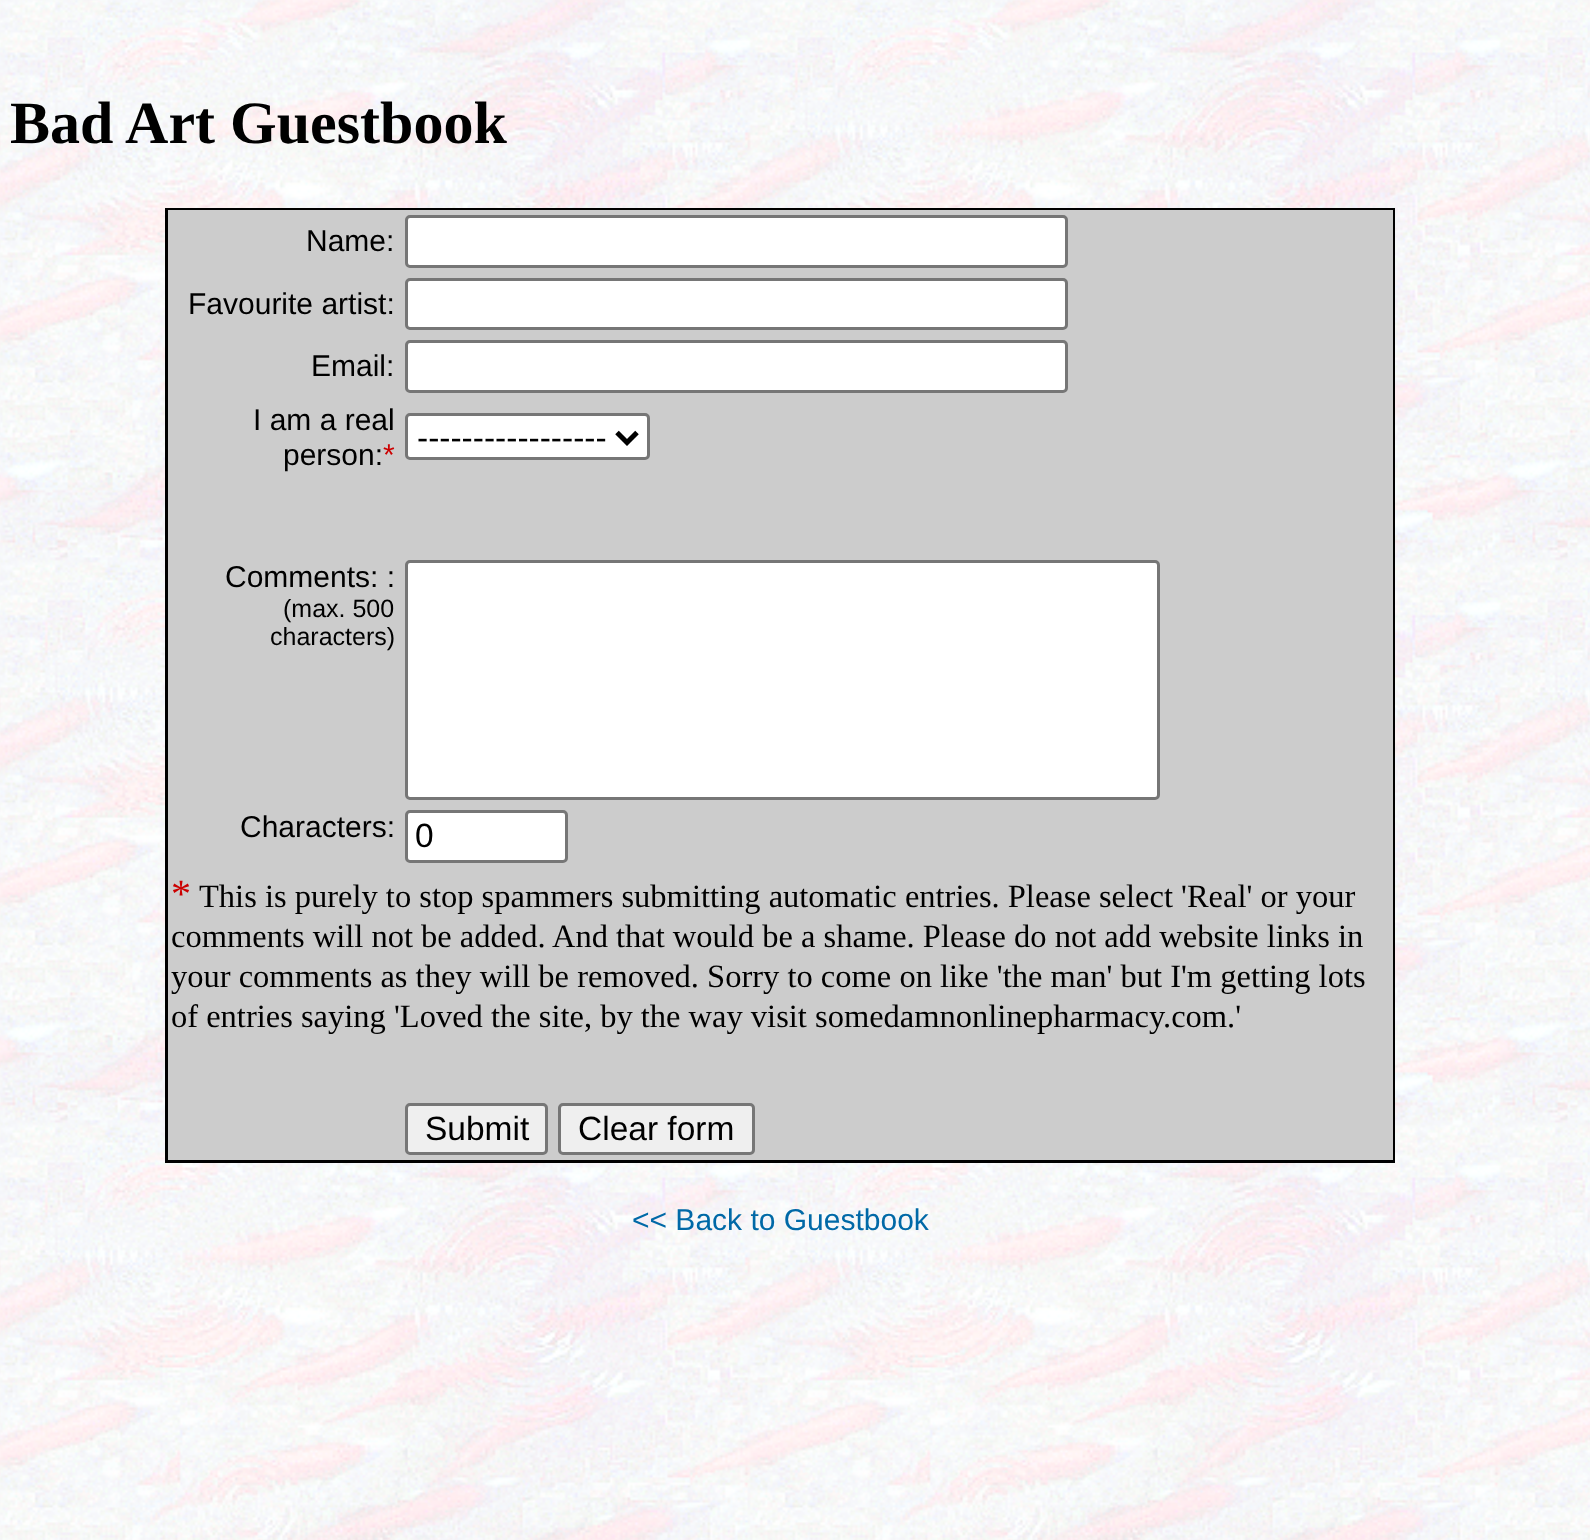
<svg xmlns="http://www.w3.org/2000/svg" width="1590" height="1540">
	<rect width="100%" height="100%" fill="#FFFFFF" />
	<image x="0" y="0" width="1590" height="1540" href="assets/img1.png" />
	<text x="10" y="143" font-family="Liberation Serif" font-size="60" font-weight="700" fill="#000000">Bad Art Guestbook</text>
	<rect x="165" y="208" width="1230" height="955" fill="#000000" />
	<rect x="168" y="210" width="1225" height="950" fill="#CCCCCC" />
	<text x="306" y="251" font-family="Liberation Sans" font-size="30" fill="#000000">Name:</text>
	<rect x="406.5" y="216.5" width="660" height="50" rx="3.5" fill="#FFFFFF" stroke="#767676" stroke-width="3" />
	<text x="188" y="314" font-family="Liberation Sans" font-size="30" fill="#000000">Favourite artist:</text>
	<rect x="406.5" y="279.5" width="660" height="49" rx="3.5" fill="#FFFFFF" stroke="#767676" stroke-width="3" />
	<text x="311" y="376" font-family="Liberation Sans" font-size="30" fill="#000000">Email:</text>
	<rect x="406.5" y="341.5" width="660" height="50" rx="3.5" fill="#FFFFFF" stroke="#767676" stroke-width="3" />
	<g font-family="Liberation Sans" font-size="30" fill="#000000">
		<text x="253" y="430">I am a real</text>
		<text x="283" y="465">person:</text>
	</g>
	<text x="383" y="465" font-family="Liberation Sans" font-size="30" fill="#CC0000">*</text>
	<rect x="406.5" y="414.5" width="242" height="44" rx="3.5" fill="#FFFFFF" stroke="#767676" stroke-width="3" />
	<path d="M617 432.5L627 442.5L637 432.5" fill="none" stroke="#000000" stroke-width="5" />
	<text x="417" y="449" font-family="Liberation Sans" font-size="33.5" fill="#000000">-----------------</text>
	<text x="225" y="587" font-family="Liberation Sans" font-size="30" fill="#000000">Comments: :</text>
	<g font-family="Liberation Sans" font-size="25" fill="#000000">
		<text x="283" y="617">(max. 500</text>
		<text x="270" y="645">characters)</text>
	</g>
	<rect x="406.5" y="561.5" width="752" height="237" rx="3.5" fill="#FFFFFF" stroke="#767676" stroke-width="3" />
	<text x="240" y="837" font-family="Liberation Sans" font-size="30" fill="#000000">Characters:</text>
	<rect x="406.5" y="811.5" width="160" height="50" rx="3.5" fill="#FFFFFF" stroke="#767676" stroke-width="3" />
	<text x="415" y="847" font-family="Liberation Sans" font-size="33.5" fill="#000000">0</text>
	<text x="171" y="907" font-family="Liberation Serif" font-size="40" fill="#CC0000">*</text>
	<g font-family="Liberation Serif" font-size="32.5" fill="#000000">
		<text x="199" y="907">This is purely to stop spammers submitting automatic entries. Please select 'Real' or your</text>
		<text x="171" y="947">comments will not be added. And that would be a shame. Please do not add website links in</text>
		<text x="171" y="987">your comments as they will be removed. Sorry to come on like 'the man' but I'm getting lots</text>
		<text x="171" y="1027">of entries saying 'Loved the site, by the way visit somedamnonlinepharmacy.com.'</text>
	</g>
	<rect x="406.5" y="1104.5" width="140" height="49" rx="3.5" fill="#EFEFEF" stroke="#767676" stroke-width="3" />
	<text x="425" y="1140" font-family="Liberation Sans" font-size="33.5" fill="#000000">Submit</text>
	<rect x="559.5" y="1104.5" width="194" height="49" rx="3.5" fill="#EFEFEF" stroke="#767676" stroke-width="3" />
	<text x="578" y="1140" font-family="Liberation Sans" font-size="33.5" fill="#000000">Clear form</text>
	<text x="632" y="1230" font-family="Liberation Sans" font-size="30" fill="#0069A7">&lt;&lt; Back to Guestbook</text>
</svg>
